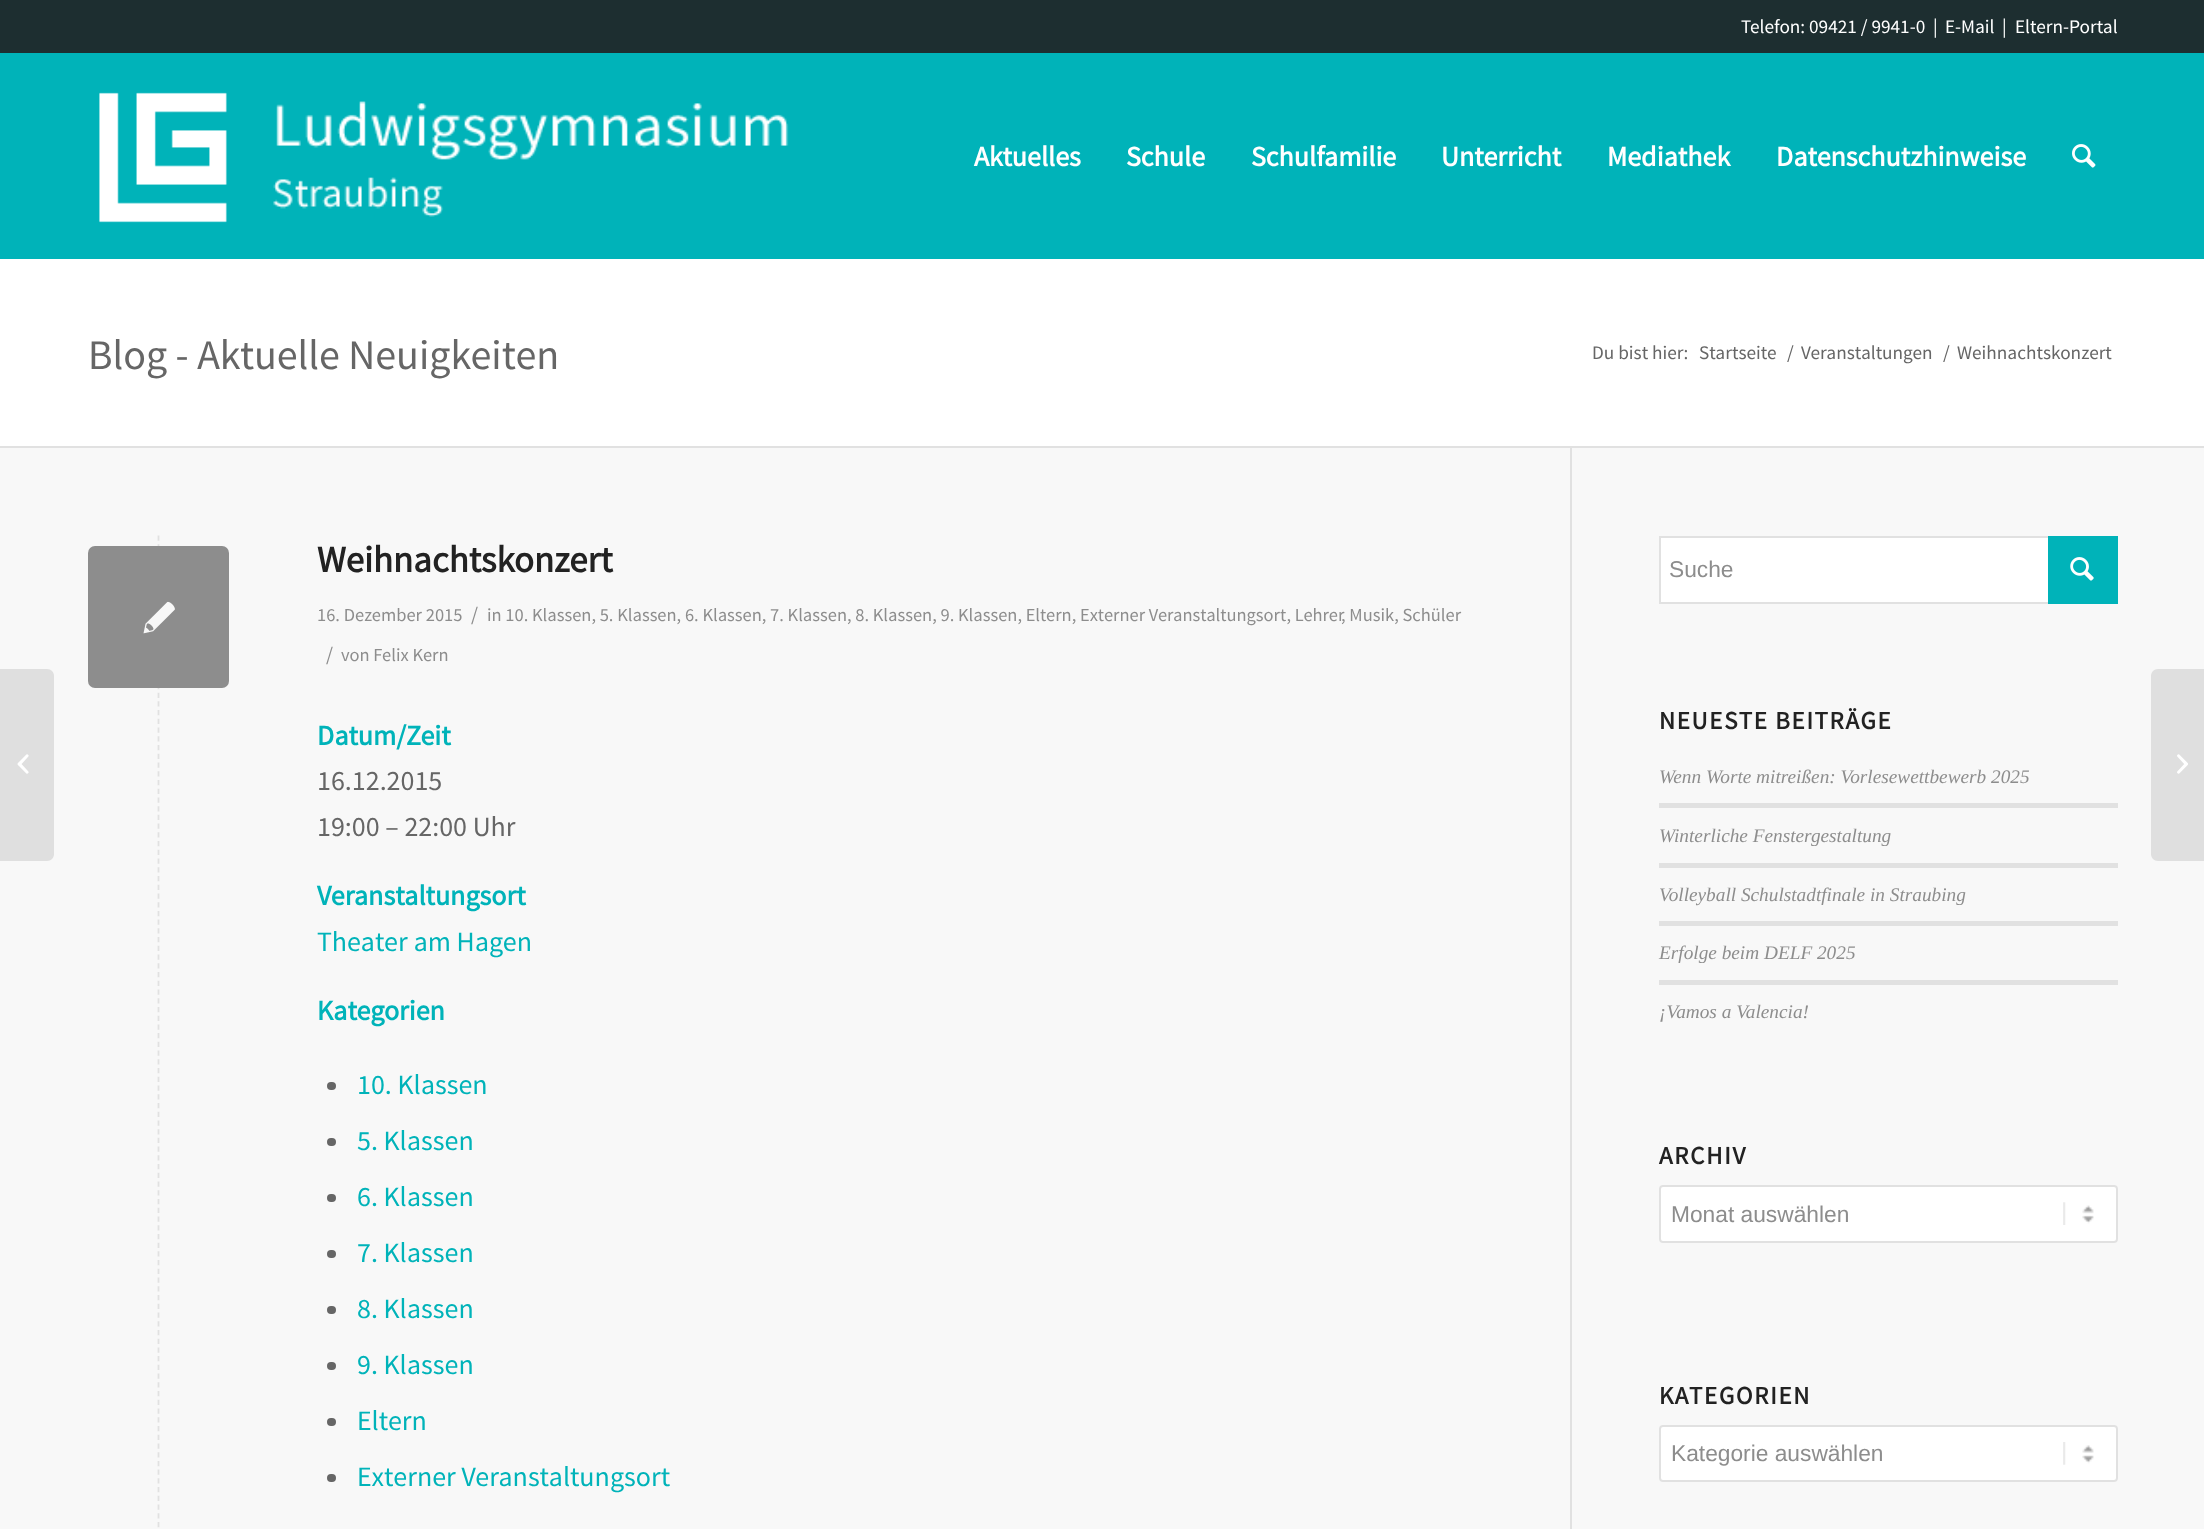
<svg xmlns="http://www.w3.org/2000/svg" width="2204" height="1529">
	<rect width="100%" height="100%" fill="#00B3B9" />
	<rect x="0" y="0" width="2204" height="53" fill="#1D2E30" />
	<g font-family="Source Sans Pro" font-size="19.25" fill="#FFFFFF">
		<text x="1741" y="33">Telefon: 09421 / 9941-0</text>
		<text x="1933" y="33">|</text>
		<text x="1945" y="33">E-Mail</text>
		<text x="2002" y="33">|</text>
		<text x="2015" y="33">Eltern-Portal</text>
	</g>
	<image x="99" y="92" width="690" height="131" href="assets/img1.png" />
	<g font-family="Source Sans Pro" font-size="28" font-weight="700" fill="#FFFFFF">
		<text x="974" y="166">Aktuelles</text>
		<text x="1126" y="166">Schule</text>
		<text x="1251" y="166">Schulfamilie</text>
		<text x="1441" y="166">Unterricht</text>
		<text x="1607" y="166">Mediathek</text>
		<text x="1776" y="166">Datenschutzhinweise</text>
	</g>
	<image x="2072" y="144" width="24" height="24" href="assets/img2.png" />
	<rect x="0" y="448" width="2204" height="1081" fill="#F8F8F8" />
	<path d="M0 669H47C51 669 54 672 54 676V854C54 858 51 861 47 861H0Z" fill="#DFDFDF" />
	<image x="17" y="754" width="12" height="20" href="assets/img3.png" />
	<rect x="0" y="259" width="2204" height="187" fill="#FFFFFF" />
	<text x="88" y="369" font-family="Source Sans Pro" font-size="42" fill="#666666">Blog - Aktuelle Neuigkeiten</text>
	<g font-family="Source Sans Pro" font-size="19.25" fill="#666666">
		<text x="1592" y="359">Du bist hier:</text>
		<text x="1699" y="359">Startseite</text>
		<text x="1787" y="359">/</text>
		<text x="1801" y="359">Veranstaltungen</text>
		<text x="1943" y="359">/</text>
		<text x="1957" y="359">Weihnachtskonzert</text>
	</g>
	<rect x="0" y="446" width="2204" height="2" fill="#E1E1E1" />
	<rect x="1570" y="448" width="2" height="1081" fill="#E1E1E1" />
	<path d="M158.5 535.5V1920" fill="none" stroke="#E1E1E1" stroke-width="1.8" stroke-dasharray="5.25 3.48" />
	<text x="317" y="572" font-family="Source Sans Pro" font-size="36.75" font-weight="700" fill="#222222">Weihnachtskonzert</text>
	<text x="317" y="621" font-family="Source Sans Pro" font-size="18.45" fill="#8D8D8D">16. Dezember 2015</text>
	<text x="471" y="621" font-family="Source Sans Pro" font-size="20" fill="#8D8D8D">/</text>
	<g font-family="Source Sans Pro" font-size="18.45" fill="#8D8D8D">
		<text x="487" y="621">in 10. Klassen, 5. Klassen, 6. Klassen, 7. Klassen, 8. Klassen, 9. Klassen, Eltern, Externer Veranstaltungsort, Lehrer</text>
		<text x="1341" y="621">, Musik, Schüler</text>
	</g>
	<text x="326" y="661" font-family="Source Sans Pro" font-size="20" fill="#8D8D8D">/</text>
	<text x="341" y="661" font-family="Source Sans Pro" font-size="18.45" fill="#8D8D8D">von Felix Kern</text>
	<text x="317" y="745" font-family="Source Sans Pro" font-size="28" font-weight="700" fill="#00B3B9">Datum/Zeit</text>
	<g font-family="Source Sans Pro" font-size="28" fill="#666666">
		<text x="317" y="790">16.12.2015</text>
		<text x="317" y="836">19:00 – 22:00 Uhr</text>
	</g>
	<text x="317" y="905" font-family="Source Sans Pro" font-size="28" font-weight="700" fill="#00B3B9">Veranstaltungsort</text>
	<text x="317" y="951" font-family="Source Sans Pro" font-size="28" fill="#00B3B9">Theater am Hagen</text>
	<text x="317" y="1020" font-family="Source Sans Pro" font-size="28" font-weight="700" fill="#00B3B9">Kategorien</text>
	<rect x="327" y="1082" width="9" height="8" rx="4" fill="#666666" />
	<text x="357" y="1094" font-family="Source Sans Pro" font-size="28" fill="#00B3B9">10. Klassen</text>
	<rect x="327" y="1138" width="9" height="8" rx="4" fill="#666666" />
	<text x="357" y="1150" font-family="Source Sans Pro" font-size="28" fill="#00B3B9">5. Klassen</text>
	<rect x="327" y="1194" width="9" height="8" rx="4" fill="#666666" />
	<text x="357" y="1206" font-family="Source Sans Pro" font-size="28" fill="#00B3B9">6. Klassen</text>
	<rect x="327" y="1250" width="9" height="8" rx="4" fill="#666666" />
	<text x="357" y="1262" font-family="Source Sans Pro" font-size="28" fill="#00B3B9">7. Klassen</text>
	<rect x="327" y="1306" width="9" height="8" rx="4" fill="#666666" />
	<text x="357" y="1318" font-family="Source Sans Pro" font-size="28" fill="#00B3B9">8. Klassen</text>
	<rect x="327" y="1362" width="9" height="8" rx="4" fill="#666666" />
	<text x="357" y="1374" font-family="Source Sans Pro" font-size="28" fill="#00B3B9">9. Klassen</text>
	<rect x="327" y="1418" width="9" height="8" rx="4" fill="#666666" />
	<text x="357" y="1430" font-family="Source Sans Pro" font-size="28" fill="#00B3B9">Eltern</text>
	<rect x="327" y="1474" width="9" height="8" rx="4" fill="#666666" />
	<text x="357" y="1486" font-family="Source Sans Pro" font-size="28" fill="#00B3B9">Externer Veranstaltungsort</text>
	<rect x="88" y="546" width="141" height="142" rx="7" fill="#8D8D8D" />
	<image x="143" y="601" width="32" height="33" href="assets/img4.png" />
	<rect x="1661" y="538" width="387" height="64" fill="#FFFFFF" />
	<rect x="1660" y="537" width="457" height="66" fill="none" stroke="#E1E1E1" stroke-width="2" />
	<text x="1669" y="577" font-family="Liberation Sans" font-size="22.75" fill="#8D8D8D">Suche</text>
	<rect x="2048" y="536" width="70" height="68" fill="#00B3B9" />
	<image x="2070" y="557" width="24" height="24" href="assets/img5.png" />
	<text x="1659" y="729" font-family="Source Sans Pro" font-size="25" font-weight="700" letter-spacing="1.75" fill="#222222">NEUESTE BEITRÄGE</text>
	<text x="1659" y="783" font-family="Liberation Serif" font-size="19.3" font-style="italic" fill="#8D8D8D">Wenn Worte mitreißen: Vorlesewettbewerb 2025</text>
	<rect x="1659" y="803" width="459" height="5" fill="#E1E1E1" />
	<text x="1659" y="842" font-family="Liberation Serif" font-size="19.3" font-style="italic" fill="#8D8D8D">Winterliche Fenstergestaltung</text>
	<rect x="1659" y="863" width="459" height="5" fill="#E1E1E1" />
	<text x="1659" y="901" font-family="Liberation Serif" font-size="19.3" font-style="italic" fill="#8D8D8D">Volleyball Schulstadtfinale in Straubing</text>
	<rect x="1659" y="921" width="459" height="5" fill="#E1E1E1" />
	<text x="1659" y="959" font-family="Liberation Serif" font-size="19.3" font-style="italic" fill="#8D8D8D">Erfolge beim DELF 2025</text>
	<rect x="1659" y="980" width="459" height="5" fill="#E1E1E1" />
	<text x="1659" y="1018" font-family="Liberation Serif" font-size="19.3" font-style="italic" fill="#8D8D8D">¡Vamos a Valencia!</text>
	<text x="1659" y="1164" font-family="Source Sans Pro" font-size="25" font-weight="700" letter-spacing="1.75" fill="#222222">ARCHIV</text>
	<rect x="1659" y="1185" width="459" height="58" rx="4" fill="#FFFFFF" />
	<image x="2063" y="1202" width="31" height="23" href="assets/img6.png" />
	<rect x="1660" y="1186" width="457" height="56" rx="3" fill="none" stroke="#E1E1E1" stroke-width="2" />
	<text x="1671" y="1222" font-family="Liberation Sans" font-size="22.75" fill="#8D8D8D">Monat auswählen</text>
	<text x="1659" y="1404" font-family="Source Sans Pro" font-size="25" font-weight="700" letter-spacing="1.75" fill="#222222">KATEGORIEN</text>
	<rect x="1659" y="1425" width="459" height="57" rx="4" fill="#FFFFFF" />
	<image x="2063" y="1442" width="31" height="23" href="assets/img7.png" />
	<rect x="1660" y="1426" width="457" height="55" rx="3" fill="none" stroke="#E1E1E1" stroke-width="2" />
	<text x="1671" y="1461" font-family="Liberation Sans" font-size="22.75" fill="#8D8D8D">Kategorie auswählen</text>
	<path d="M2158 669H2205V861H2158C2154 861 2151 858 2151 854V676C2151 672 2154 669 2158 669Z" fill="#DFDFDF" />
	<image x="2177" y="754" width="11" height="20" href="assets/img8.png" />
</svg>
